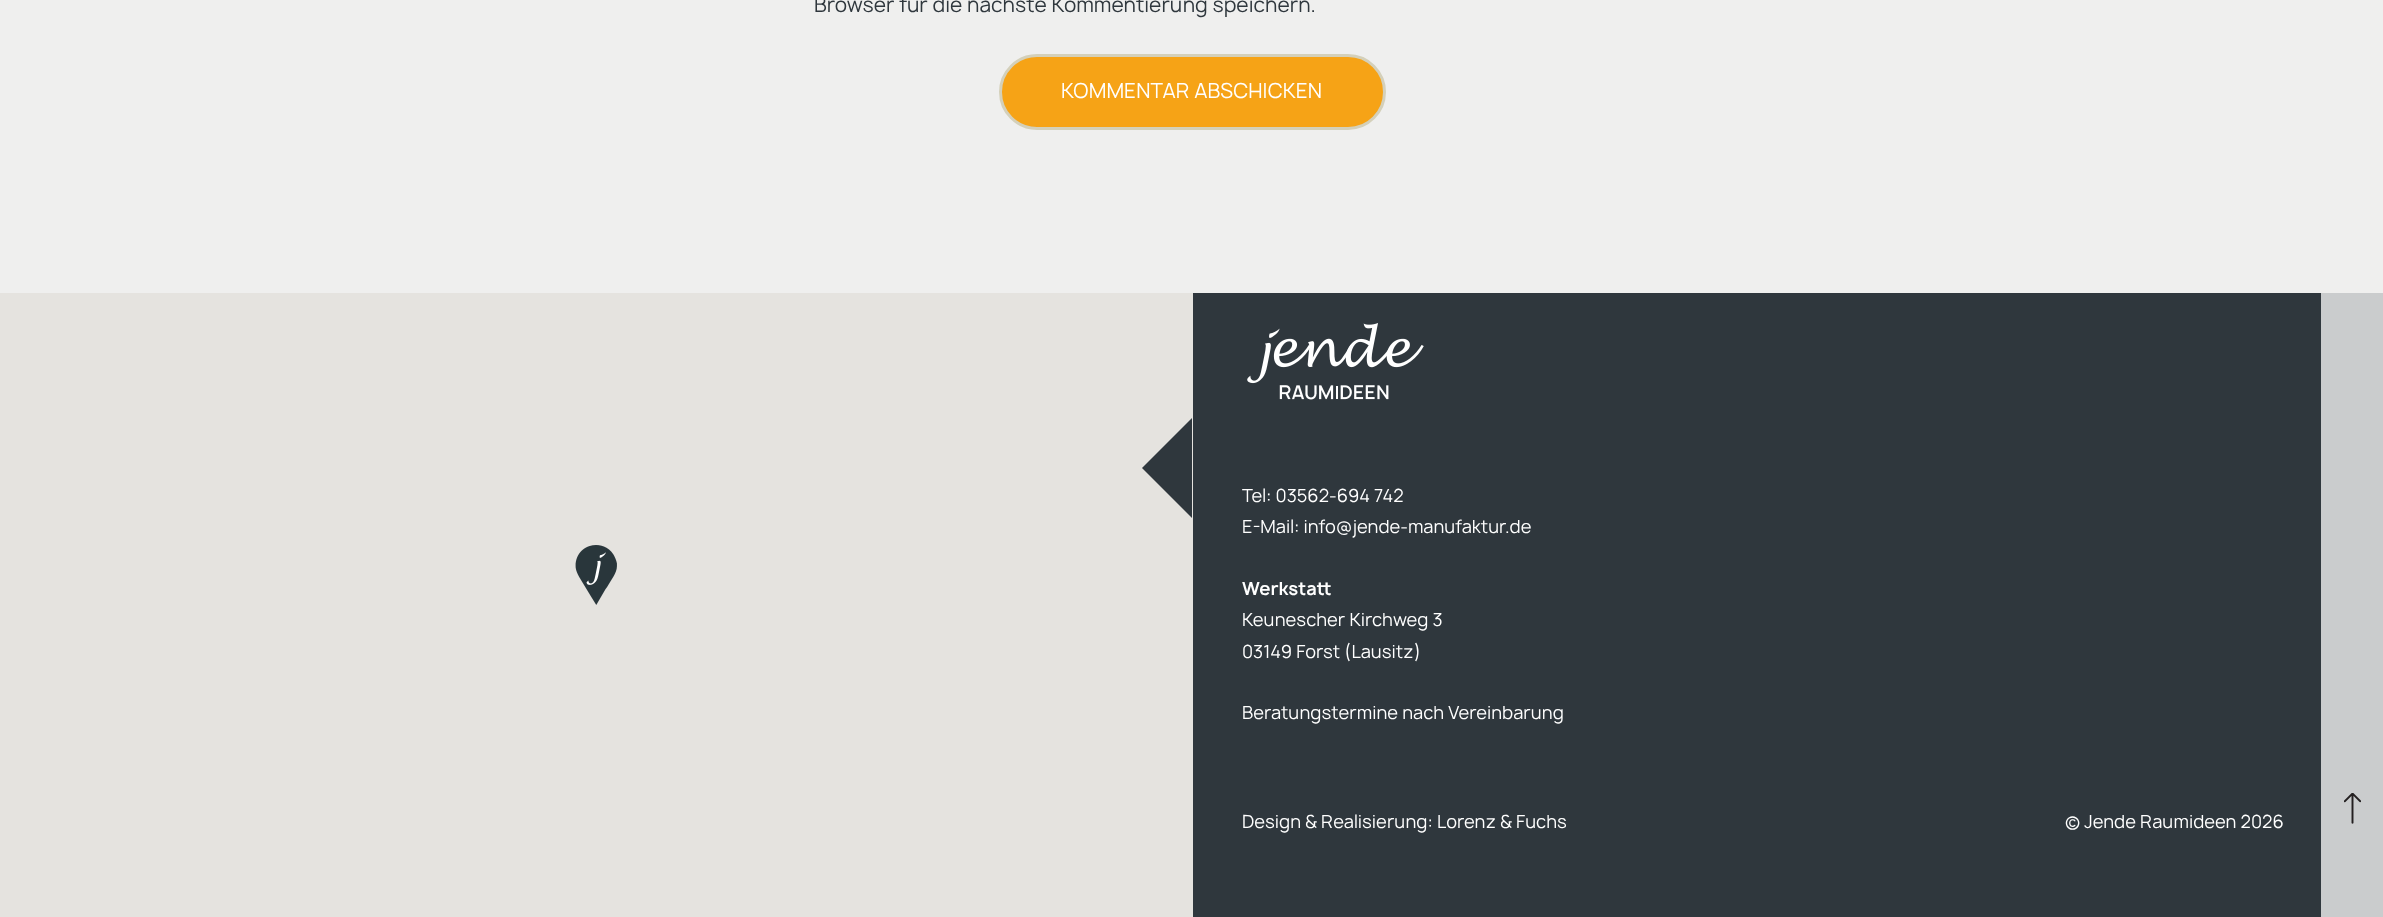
<svg xmlns="http://www.w3.org/2000/svg" width="2383" height="917">
	<rect width="100%" height="100%" fill="#EFEFEE" />
	<text x="814" y="12" font-family="Manrope" font-size="20" fill="#2F373D">Browser für die nächste Kommentierung speichern.</text>
	<rect x="1000.5" y="55.5" width="384" height="73" rx="36.5" fill="#F6A316" stroke="#D4D0BA" stroke-width="3" />
	<text x="1061" y="98" font-family="Manrope" font-size="20" fill="#FFFFFF">KOMMENTAR ABSCHICKEN</text>
	<rect x="1193" y="293" width="1128" height="624" fill="#2F373D" />
	<rect x="0" y="293" width="1193" height="624" fill="#E5E3DF" />
	<image x="575" y="545" width="42" height="60" href="assets/img1.png" />
	<image x="1247" y="323" width="177" height="77" href="assets/img2.png" />
	<path d="M1192 468H1142L1192 418Z" fill="#2F373D" />
	<path d="M1192 468V518L1142 468Z" fill="#2F373D" />
	<g font-family="Manrope" font-size="17.5" fill="#FFFFFF">
		<text x="1242" y="502">Tel: 03562-694 742</text>
		<text x="1242" y="533">E-Mail: info@jende-manufaktur.de</text>
	</g>
	<text x="1242" y="595" font-family="Manrope" font-size="17.5" font-weight="700" fill="#FFFFFF">Werkstatt</text>
	<g font-family="Manrope" font-size="17.5" fill="#FFFFFF">
		<text x="1242" y="626">Keunescher Kirchweg 3</text>
		<text x="1242" y="658">03149 Forst (Lausitz)</text>
		<text x="1242" y="719">Beratungstermine nach Vereinbarung</text>
		<text x="1242" y="828">Design &amp; Realisierung: Lorenz &amp; Fuchs</text>
		<text x="2065" y="828">© Jende Raumideen 2026</text>
	</g>
	<rect x="2321" y="293" width="62" height="624" fill="#CACCCD" />
	<image x="2344" y="793" width="17" height="31" href="assets/img3.png" />
</svg>
